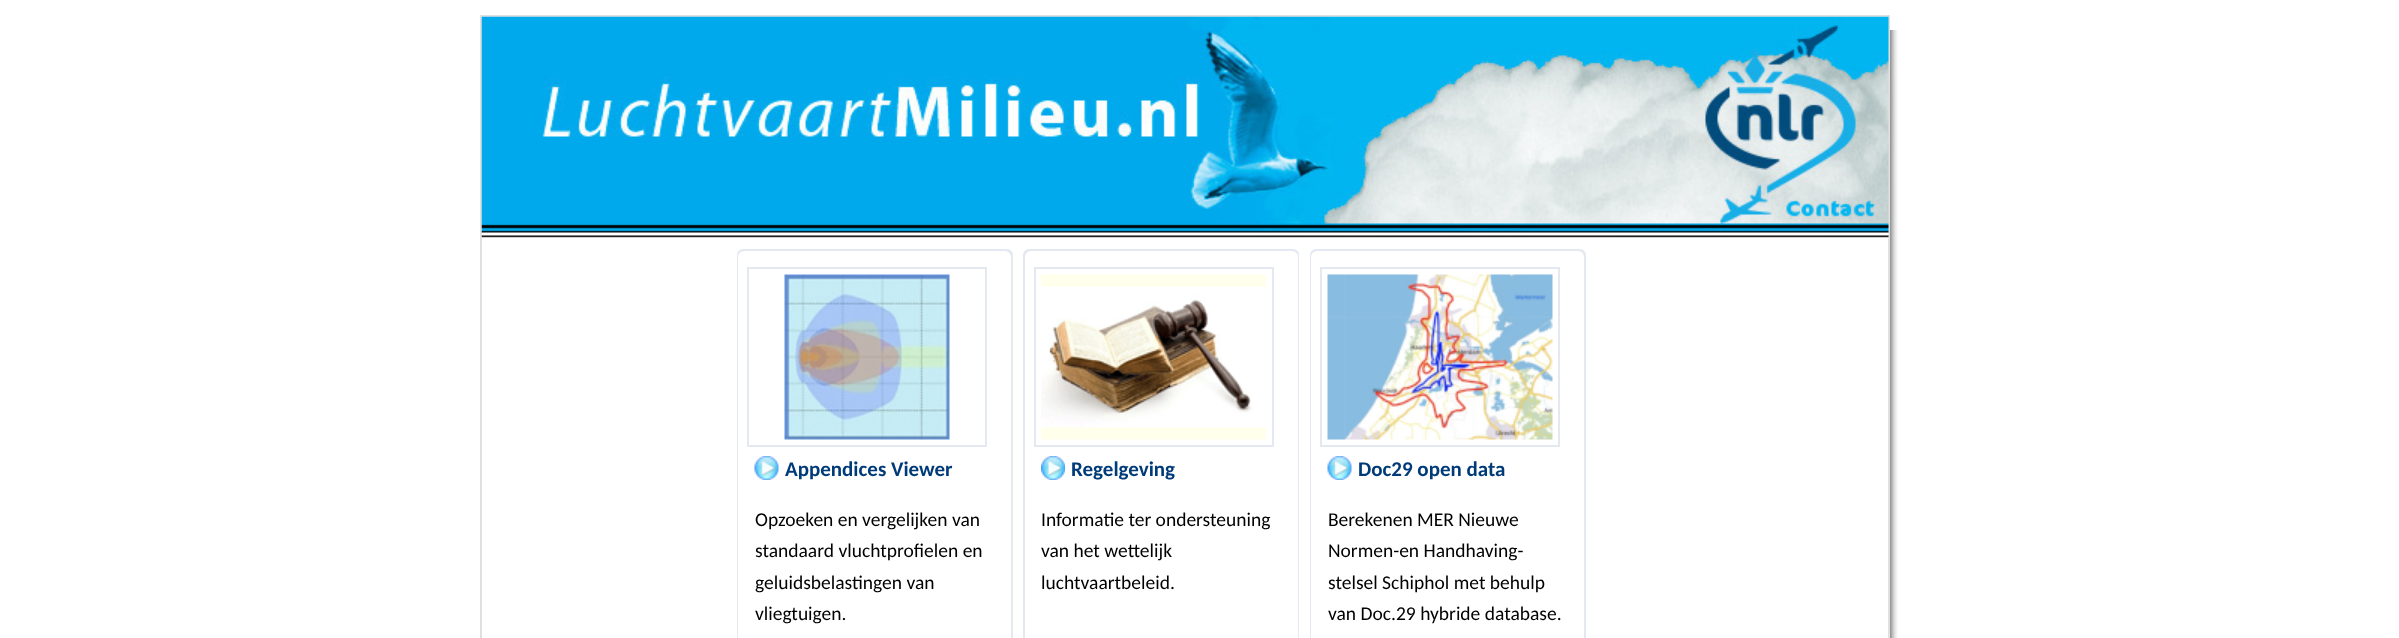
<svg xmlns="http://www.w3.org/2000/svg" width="2399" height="638">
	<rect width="100%" height="100%" fill="#FFFFFF" />
	<image x="1890" y="30" width="8" height="608" href="assets/img1.png" />
	<rect x="481" y="16" width="1408" height="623" fill="none" stroke="#E0E0E0" stroke-width="2" />
	<image x="481" y="16" width="1408" height="223" href="assets/img2.png" />
	<rect x="737" y="249" width="276" height="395" rx="6" fill="#E4E8F1" />
	<rect x="739" y="252" width="271" height="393" rx="5" fill="#FFFFFF" stroke="#FFFFFF" stroke-width="2" />
	<rect x="748" y="268" width="238" height="178" fill="none" stroke="#E4E8F1" stroke-width="2" />
	<image x="784" y="274" width="166" height="166" href="assets/img3.png" />
	<image x="754" y="456" width="25" height="24" href="assets/img4.png" />
	<text x="785" y="476" font-family="Carlito" font-size="21" font-weight="700" fill="#003B79">Appendices Viewer</text>
	<g font-family="Carlito" font-size="19.5" fill="#000000">
		<text x="755" y="526">Opzoeken en vergelijken van</text>
		<text x="755" y="557">standaard vluchtprofielen en</text>
		<text x="755" y="589">geluidsbelastingen van</text>
		<text x="755" y="620">vliegtuigen.</text>
	</g>
	<rect x="1023" y="249" width="276" height="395" rx="6" fill="#E4E8F1" />
	<rect x="1026" y="252" width="271" height="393" rx="5" fill="#FFFFFF" stroke="#FFFFFF" stroke-width="2" />
	<rect x="1035" y="268" width="238" height="178" fill="none" stroke="#E4E8F1" stroke-width="2" />
	<image x="1041" y="274" width="225" height="166" href="assets/img5.png" />
	<image x="1041" y="456" width="24" height="24" href="assets/img6.png" />
	<text x="1071" y="476" font-family="Carlito" font-size="21" font-weight="700" fill="#003B79">Regelgeving</text>
	<g font-family="Carlito" font-size="19.5" fill="#000000">
		<text x="1041" y="526">Informatie ter ondersteuning</text>
		<text x="1041" y="557">van het wettelijk</text>
		<text x="1041" y="589">luchtvaartbeleid.</text>
	</g>
	<rect x="1310" y="249" width="276" height="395" rx="6" fill="#E4E8F1" />
	<rect x="1312" y="252" width="271" height="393" rx="5" fill="#FFFFFF" stroke="#FFFFFF" stroke-width="2" />
	<rect x="1321" y="268" width="238" height="178" fill="none" stroke="#E4E8F1" stroke-width="2" />
	<image x="1327" y="274" width="226" height="166" href="assets/img7.png" />
	<image x="1327" y="456" width="25" height="24" href="assets/img8.png" />
	<text x="1358" y="476" font-family="Carlito" font-size="21" font-weight="700" fill="#003B79">Doc29 open data</text>
	<g font-family="Carlito" font-size="19.5" fill="#000000">
		<text x="1328" y="526">Berekenen MER Nieuwe</text>
		<text x="1328" y="557">Normen-en Handhaving-</text>
		<text x="1328" y="589">stelsel Schiphol met behulp</text>
		<text x="1328" y="620">van Doc.29 hybride database.</text>
	</g>
</svg>
